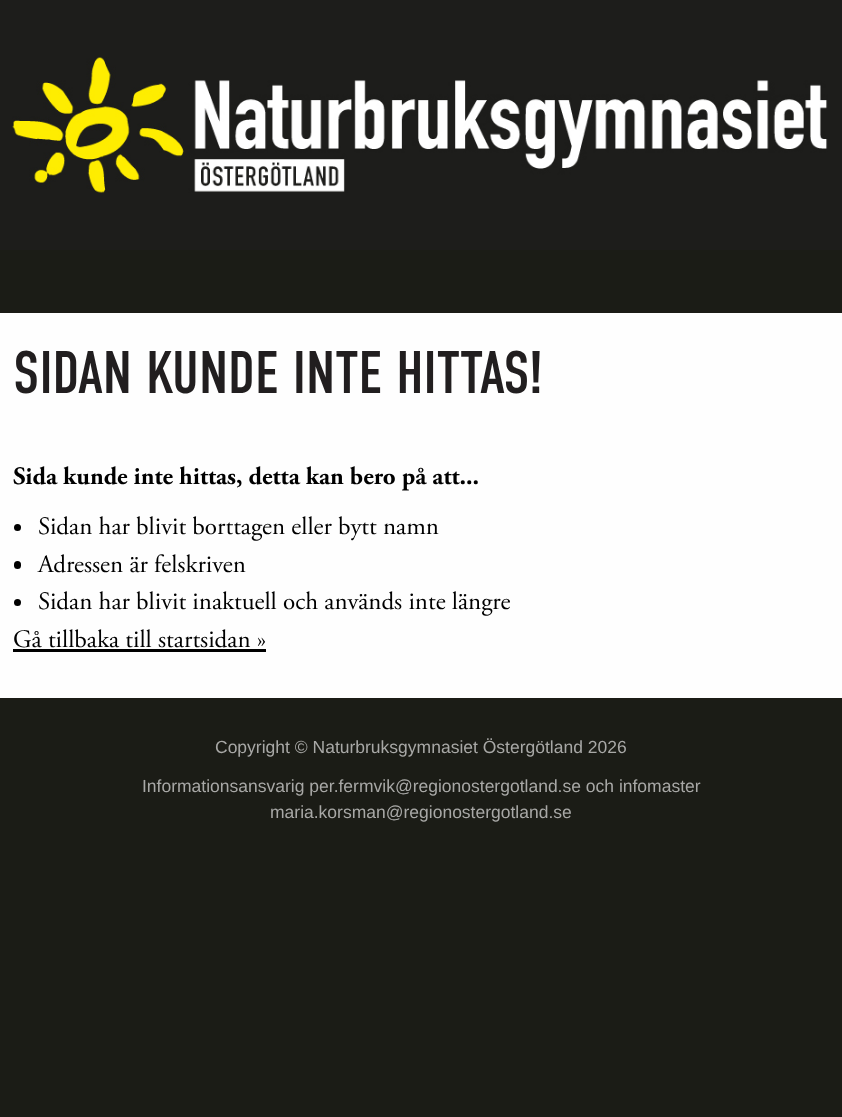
<svg xmlns="http://www.w3.org/2000/svg" width="842" height="1117">
	<rect width="100%" height="100%" fill="#1B1C16" />
	<rect x="0" y="0" width="842" height="250" fill="#1D1D1B" />
	<image x="12" y="57" width="816" height="136" href="assets/img1.png" />
	<rect x="0" y="313" width="842" height="385" fill="#FEFEFE" />
	<text x="13" y="393" font-family="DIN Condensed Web" font-size="60" fill="#211E1F">SIDAN KUNDE INTE HITTAS!</text>
	<text x="13" y="484" font-family="Adobe Garamond" font-size="25" font-weight="700" fill="#000000">Sida kunde inte hittas, detta kan bero på att...</text>
	<circle cx="17.5" cy="527.5" r="3.5" fill="#000000" />
	<text x="38" y="534" font-family="Adobe Garamond" font-size="25" fill="#000000">Sidan har blivit borttagen eller bytt namn</text>
	<rect x="14" y="561" width="7" height="8" rx="3.5" fill="#000000" />
	<text x="38" y="572" font-family="Adobe Garamond" font-size="25" fill="#000000">Adressen är felskriven</text>
	<circle cx="17.5" cy="602.5" r="3.5" fill="#000000" />
	<g font-family="Adobe Garamond" font-size="25" fill="#000000">
		<text x="38" y="609">Sidan har blivit inaktuell och används inte längre</text>
		<text x="13" y="647">Gå tillbaka till startsidan »</text>
	</g>
	<rect x="13" y="649" width="253" height="3" fill="#000000" />
	<g font-family="Liberation Sans" font-size="17.5" fill="#A8A8A6">
		<text x="215" y="753">Copyright © Naturbruksgymnasiet Östergötland 2026</text>
		<text x="142" y="792">Informationsansvarig per.fermvik@regionostergotland.se och infomaster</text>
		<text x="270" y="818">maria.korsman@regionostergotland.se</text>
	</g>
</svg>
